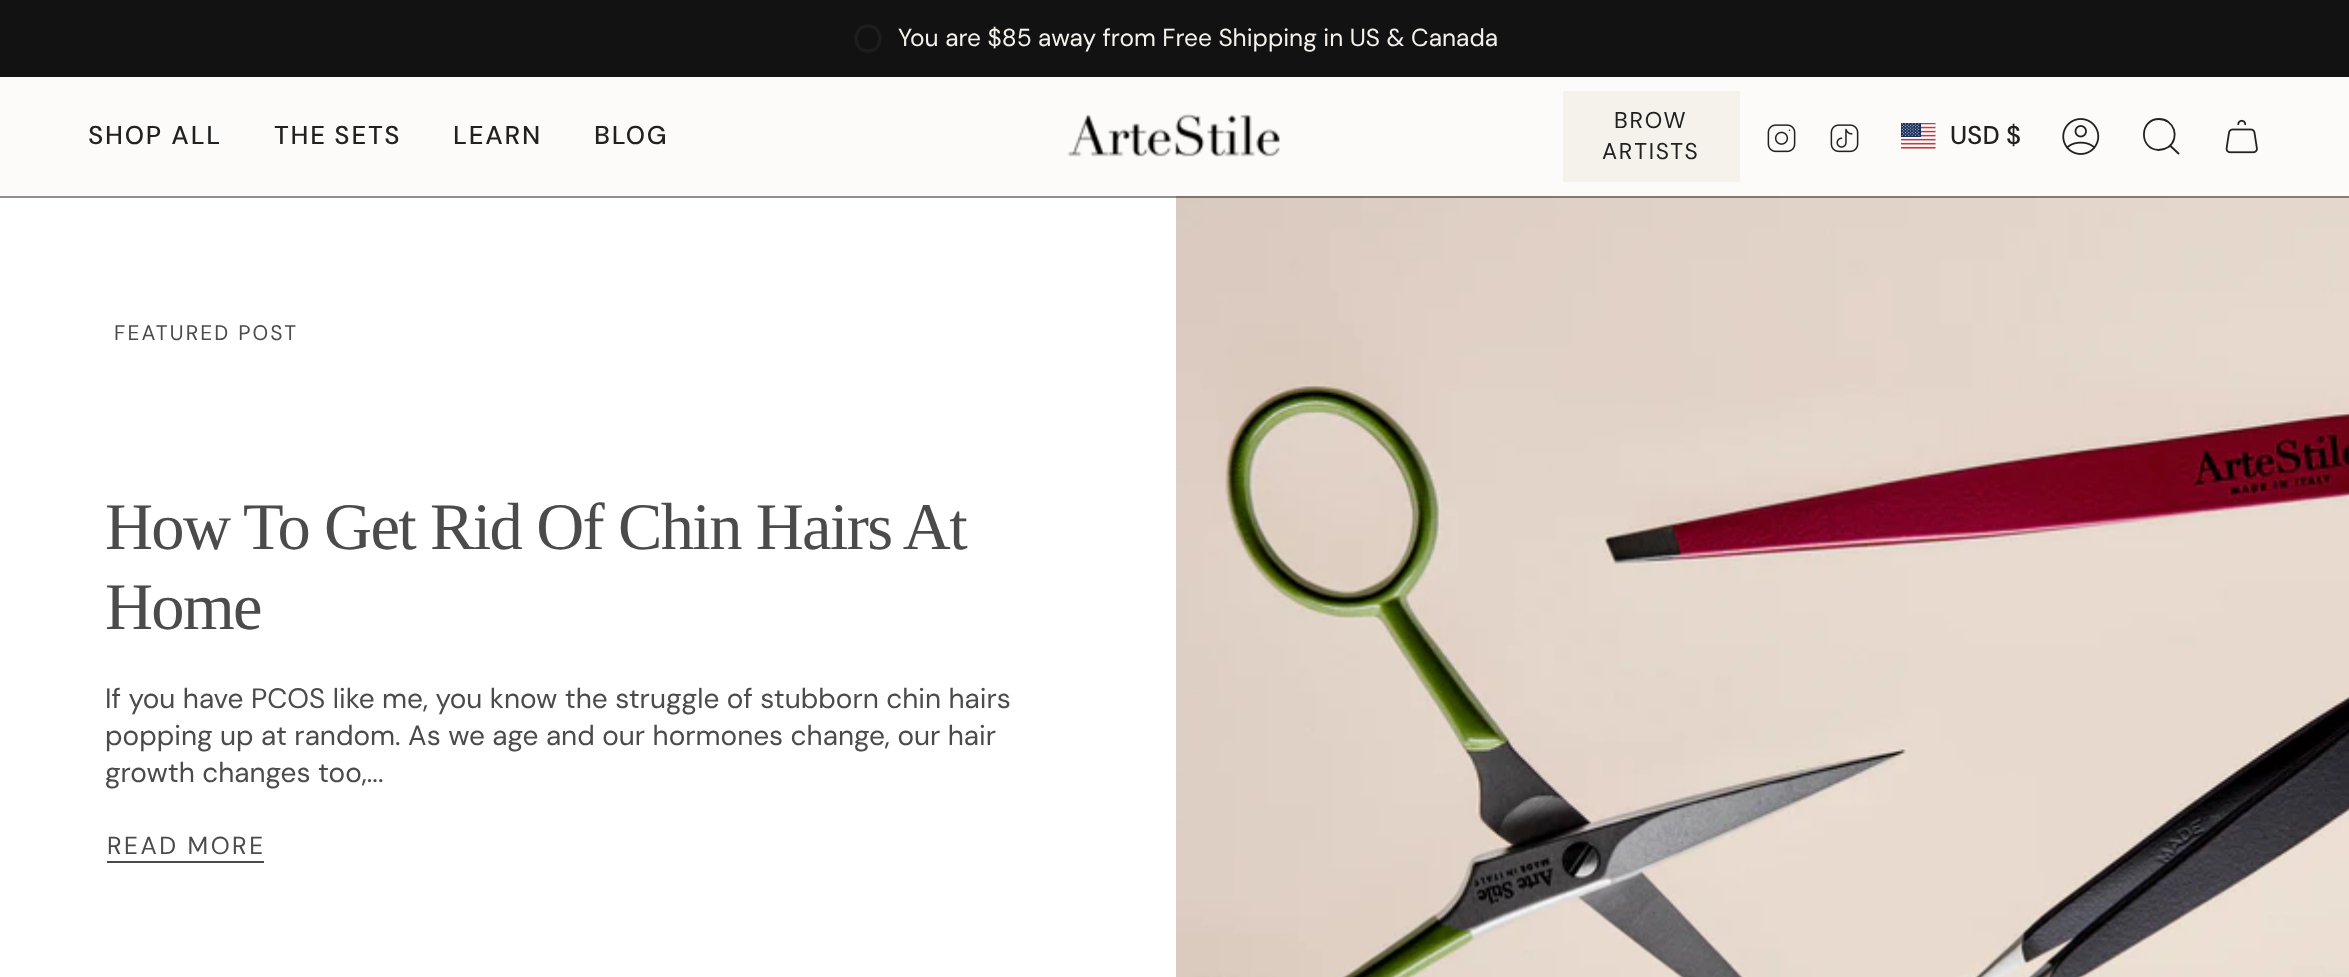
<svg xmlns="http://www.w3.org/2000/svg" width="2349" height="977">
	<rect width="100%" height="100%" fill="#FCFBF9" />
	<rect x="0" y="0" width="2349" height="77" fill="#121212" />
	<path d="M868 26C852 26 852 51 868 51C884 51 884 26 868 26Z" fill="none" stroke="#1D1D1D" stroke-width="3.5" />
	<text x="898" y="46" font-family="'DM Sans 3'" font-size="24.5" fill="#F5F2EC">You are $85 away from Free Shipping in US &amp; Canada</text>
	<g font-family="DM Sans" font-size="25.75" font-weight="500" letter-spacing="1.75" fill="#212121">
		<text x="88" y="144">SHOP ALL</text>
		<text x="274" y="144" word-spacing="-1">THE SETS</text>
		<text x="453" y="144">LEARN</text>
		<text x="594" y="144">BLOG</text>
	</g>
	<image x="1067" y="113" width="213" height="44" href="assets/img1.png" />
	<rect x="1563" y="91" width="177" height="91" fill="#F5F2EC" />
	<g font-family="'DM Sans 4'" font-size="22.75" letter-spacing="1.75" fill="#212121">
		<text x="1614" y="128">BROW</text>
		<text x="1602" y="159">ARTISTS</text>
	</g>
	<image x="1767" y="124" width="29" height="29" href="assets/img2.png" />
	<image x="1830" y="124" width="29" height="29" href="assets/img3.png" />
	<image x="1901" y="123" width="35" height="26" href="assets/img4.png" />
	<text x="1950" y="144" font-family="DM Sans" font-size="25.75" font-weight="500" fill="#212121">USD</text>
	<text x="2006" y="144" font-family="'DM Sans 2'" font-size="25.75" font-weight="500" fill="#212121">$</text>
	<image x="2062" y="118" width="38" height="37" href="assets/img5.png" />
	<path d="M2159 119C2174 119 2180.5 138 2168.5 147C2165.5 149 2162 150 2158.5 150C2138.5 149 2139.5 119 2159 119ZM2170 145.5L2179 154" fill="none" stroke="#212121" stroke-width="1.8" />
	<image x="2225" y="119" width="33" height="35" href="assets/img6.png" />
	<rect x="0" y="196" width="1176" height="781" fill="#FFFFFF" />
	<image x="1176" y="196" width="1173" height="781" href="assets/img7.png" />
	<rect x="0" y="196" width="2349" height="2" fill="#212121" fill-opacity="0.5" />
	<text x="114" y="340" font-family="DM Sans" font-size="21" letter-spacing="2.1" fill="#4B4B4B">FEATURED POST</text>
	<g font-family="Liberation Serif" font-size="66.5" letter-spacing="-1.65" fill="#4B4B4B">
		<text x="105" y="549">How To Get Rid Of Chin Hairs At</text>
		<text x="105" y="629">Home</text>
	</g>
	<g font-family="'DM Sans 2'" font-size="28" fill="#4B4B4B">
		<text x="105" y="708">If you have PCOS like me, you know the struggle of stubborn chin hairs</text>
		<text x="105" y="745">popping up at random. As we age and our hormones change, our hair</text>
		<text x="105" y="782">growth changes too,...</text>
	</g>
	<text x="107" y="854" font-family="'DM Sans 3'" font-size="24.5" letter-spacing="2.5" fill="#4B4B4B">READ MORE</text>
	<rect x="107" y="861" width="157" height="2" fill="#4B4B4B" />
</svg>
